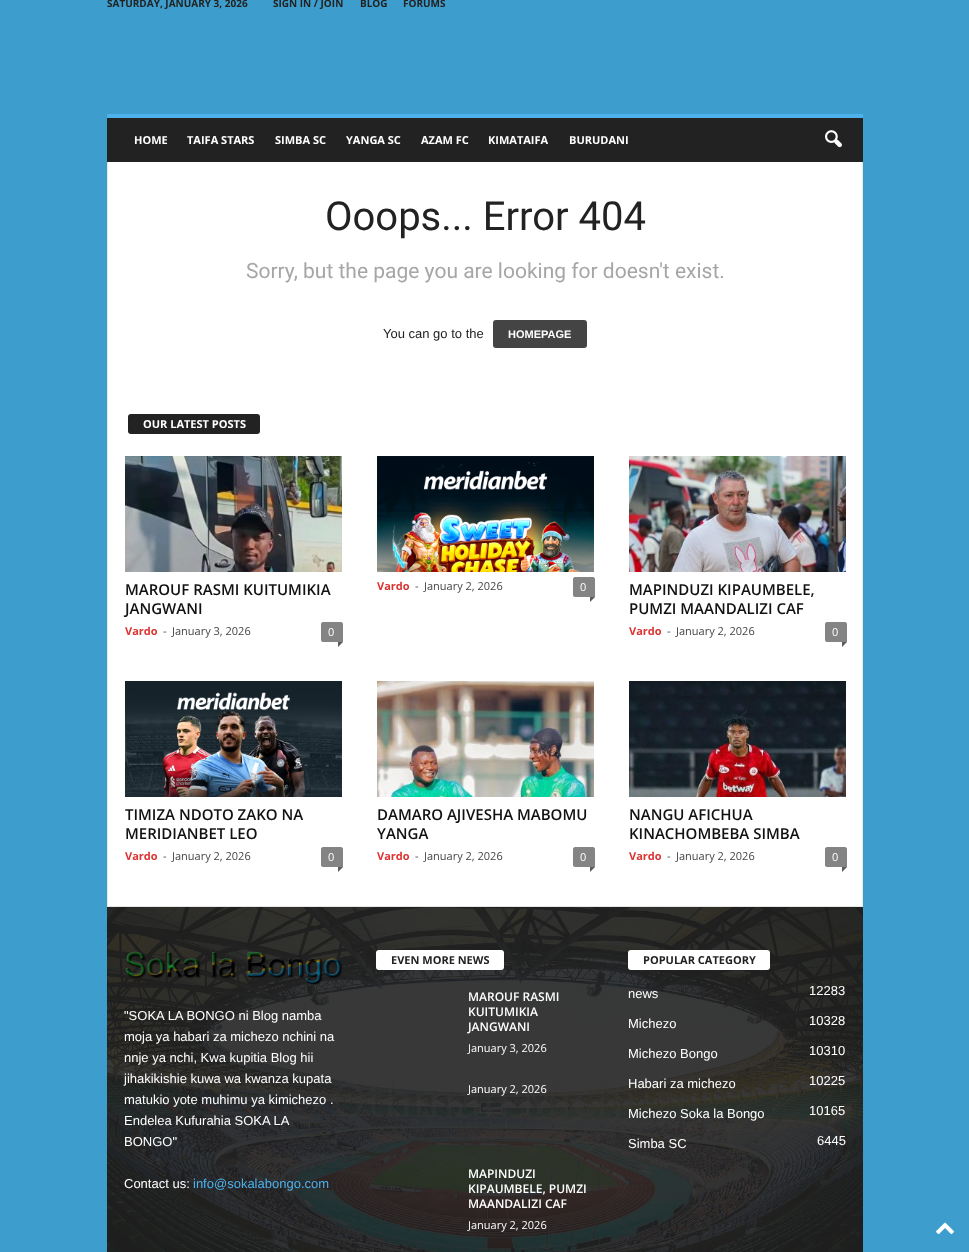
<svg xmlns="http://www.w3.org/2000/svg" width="969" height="1252">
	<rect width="100%" height="100%" fill="#3D9ECE" />
	<g font-family="Open Sans" font-size="10" font-weight="700" fill="#222222">
		<text x="107" y="7">SATURDAY, JANUARY 3, 2026</text>
		<text x="273" y="7">SIGN IN / JOIN</text>
		<text x="360" y="7">BLOG</text>
		<text x="403" y="7">FORUMS</text>
	</g>
	<rect x="107" y="118" width="756" height="44" fill="#222222" />
	<rect x="107" y="114" width="756" height="4" fill="#4DB2EC" />
	<g font-family="Open Sans" font-size="11" font-weight="700" fill="#FFFFFF">
		<text x="134" y="144">HOME</text>
		<text x="187" y="144">TAIFA STARS</text>
		<text x="275" y="144">SIMBA SC</text>
		<text x="346" y="144">YANGA SC</text>
		<text x="421" y="144">AZAM FC</text>
		<text x="488" y="144">KIMATAIFA</text>
		<text x="569" y="144">BURUDANI</text>
	</g>
	<image x="825" y="130" width="17" height="18" href="assets/img1.png" />
	<rect x="108" y="162" width="754" height="744" fill="#FFFFFF" />
	<rect x="107" y="906" width="756" height="1" fill="#E6E6E6" />
	<rect x="107" y="162" width="1" height="744" fill="#E6E6E6" />
	<text x="325" y="230" font-family="Roboto" font-size="40" fill="#222222">Ooops... Error 404</text>
	<text x="246" y="278" font-family="Roboto" font-size="21" fill="#A6A6A6">Sorry, but the page you are looking for doesn't exist.</text>
	<text x="383" y="338" font-family="Liberation Sans" font-size="13" fill="#222222">You can go to the</text>
	<rect x="493" y="320" width="94" height="28" rx="3" fill="#444444" />
	<text x="508" y="338" font-family="Liberation Sans" font-size="11" font-weight="700" fill="#FFFFFF">HOMEPAGE</text>
	<rect x="128" y="414" width="132" height="20" rx="3" fill="#222222" />
	<text x="143" y="428" font-family="Open Sans" font-size="11" font-weight="700" fill="#FFFFFF">OUR LATEST POSTS</text>
	<image x="125" y="456" width="217" height="116" href="assets/img2.png" />
	<g font-family="Open Sans" font-size="15" font-weight="600" fill="#111111">
		<text x="125" y="595">MAROUF RASMI KUITUMIKIA</text>
		<text x="125" y="614">JANGWANI</text>
	</g>
	<text x="125" y="635" font-family="Open Sans" font-size="11" font-weight="700" fill="#DD3333">Vardo</text>
	<g font-family="Open Sans" font-size="11" fill="#444444">
		<text x="163" y="635">-</text>
		<text x="172" y="635">January 3, 2026</text>
	</g>
	<path d="M323 622H341C342 622 343 623 343 624V642H323C322 642 321 641 321 640V624C321 623 322 622 323 622Z" fill="#848484" />
	<text x="328" y="636" font-family="Open Sans" font-size="11" fill="#FFFFFF">0</text>
	<path d="M338 642H343L338 647Z" fill="#5B5B5B" />
	<image x="377" y="456" width="217" height="116" href="assets/img3.png" />
	<text x="377" y="590" font-family="Open Sans" font-size="11" font-weight="700" fill="#DD3333">Vardo</text>
	<g font-family="Open Sans" font-size="11" fill="#444444">
		<text x="415" y="590">-</text>
		<text x="424" y="590">January 2, 2026</text>
	</g>
	<path d="M575 577H593C594 577 595 578 595 579V597H575C574 597 573 596 573 595V579C573 578 574 577 575 577Z" fill="#848484" />
	<text x="580" y="591" font-family="Open Sans" font-size="11" fill="#FFFFFF">0</text>
	<path d="M590 597H595L590 602Z" fill="#5B5B5B" />
	<image x="629" y="456" width="217" height="116" href="assets/img4.png" />
	<g font-family="Open Sans" font-size="15" font-weight="600" fill="#111111">
		<text x="629" y="595">MAPINDUZI KIPAUMBELE,</text>
		<text x="629" y="614">PUMZI MAANDALIZI CAF</text>
	</g>
	<text x="629" y="635" font-family="Open Sans" font-size="11" font-weight="700" fill="#DD3333">Vardo</text>
	<g font-family="Open Sans" font-size="11" fill="#444444">
		<text x="667" y="635">-</text>
		<text x="676" y="635">January 2, 2026</text>
	</g>
	<path d="M827 622H845C846 622 847 623 847 624V642H827C826 642 825 641 825 640V624C825 623 826 622 827 622Z" fill="#848484" />
	<text x="832" y="636" font-family="Open Sans" font-size="11" fill="#FFFFFF">0</text>
	<path d="M842 642H847L842 647Z" fill="#5B5B5B" />
	<image x="125" y="681" width="217" height="116" href="assets/img5.png" />
	<g font-family="Open Sans" font-size="15" font-weight="600" fill="#111111">
		<text x="125" y="820">TIMIZA NDOTO ZAKO NA</text>
		<text x="125" y="839">MERIDIANBET LEO</text>
	</g>
	<text x="125" y="860" font-family="Open Sans" font-size="11" font-weight="700" fill="#DD3333">Vardo</text>
	<g font-family="Open Sans" font-size="11" fill="#444444">
		<text x="163" y="860">-</text>
		<text x="172" y="860">January 2, 2026</text>
	</g>
	<path d="M323 847H341C342 847 343 848 343 849V867H323C322 867 321 866 321 865V849C321 848 322 847 323 847Z" fill="#848484" />
	<text x="328" y="861" font-family="Open Sans" font-size="11" fill="#FFFFFF">0</text>
	<path d="M338 867H343L338 872Z" fill="#5B5B5B" />
	<image x="377" y="681" width="217" height="116" href="assets/img6.png" />
	<g font-family="Open Sans" font-size="15" font-weight="600" fill="#111111">
		<text x="377" y="820">DAMARO AJIVESHA MABOMU</text>
		<text x="377" y="839">YANGA</text>
	</g>
	<text x="377" y="860" font-family="Open Sans" font-size="11" font-weight="700" fill="#DD3333">Vardo</text>
	<g font-family="Open Sans" font-size="11" fill="#444444">
		<text x="415" y="860">-</text>
		<text x="424" y="860">January 2, 2026</text>
	</g>
	<path d="M575 847H593C594 847 595 848 595 849V867H575C574 867 573 866 573 865V849C573 848 574 847 575 847Z" fill="#848484" />
	<text x="580" y="861" font-family="Open Sans" font-size="11" fill="#FFFFFF">0</text>
	<path d="M590 867H595L590 872Z" fill="#5B5B5B" />
	<image x="629" y="681" width="217" height="116" href="assets/img7.png" />
	<g font-family="Open Sans" font-size="15" font-weight="600" fill="#111111">
		<text x="629" y="820">NANGU AFICHUA</text>
		<text x="629" y="839">KINACHOMBEBA SIMBA</text>
	</g>
	<text x="629" y="860" font-family="Open Sans" font-size="11" font-weight="700" fill="#DD3333">Vardo</text>
	<g font-family="Open Sans" font-size="11" fill="#444444">
		<text x="667" y="860">-</text>
		<text x="676" y="860">January 2, 2026</text>
	</g>
	<path d="M827 847H845C846 847 847 848 847 849V867H827C826 867 825 866 825 865V849C825 848 826 847 827 847Z" fill="#848484" />
	<text x="832" y="861" font-family="Open Sans" font-size="11" fill="#FFFFFF">0</text>
	<path d="M842 867H847L842 872Z" fill="#5B5B5B" />
	<rect x="862" y="162" width="1" height="744" fill="#E6E6E6" />
	<rect x="107" y="907" width="756" height="345" fill="#222222" />
	<image x="107" y="907" width="756" height="345" href="assets/img8.png" />
	<image x="125" y="951" width="217" height="34" href="assets/img9.png" />
	<g font-family="Liberation Sans" font-size="13" fill="#FFFFFF">
		<text x="124" y="1020">"SOKA LA BONGO ni Blog namba</text>
		<text x="124" y="1041">moja ya habari za michezo nchini na</text>
		<text x="124" y="1062">nnje ya nchi, Kwa kupitia Blog hii</text>
		<text x="124" y="1083">jihakikishie kuwa wa kwanza kupata</text>
		<text x="124" y="1104">matukio yote muhimu ya kimichezo .</text>
		<text x="124" y="1125">Endelea Kufurahia SOKA LA</text>
		<text x="124" y="1146">BONGO"</text>
		<text x="124" y="1188">Contact us:</text>
	</g>
	<text x="193" y="1188" font-family="Liberation Sans" font-size="13" fill="#4DB2EC">info@sokalabongo.com</text>
	<rect x="376" y="950" width="128" height="20" rx="3" fill="#FFFFFF" />
	<text x="391" y="964" font-family="Open Sans" font-size="11" font-weight="700" fill="#222222">EVEN MORE NEWS</text>
	<g font-family="Open Sans" font-size="12" font-weight="600" fill="#FFFFFF">
		<text x="468" y="1001">MAROUF RASMI</text>
		<text x="468" y="1016">KUITUMIKIA</text>
		<text x="468" y="1031">JANGWANI</text>
	</g>
	<g font-family="Open Sans" font-size="11" fill="#FFFFFF">
		<text x="468" y="1052">January 3, 2026</text>
		<text x="468" y="1093">January 2, 2026</text>
	</g>
	<g font-family="Open Sans" font-size="12" font-weight="600" fill="#FFFFFF">
		<text x="468" y="1178">MAPINDUZI</text>
		<text x="468" y="1193">KIPAUMBELE, PUMZI</text>
		<text x="468" y="1208">MAANDALIZI CAF</text>
	</g>
	<text x="468" y="1229" font-family="Open Sans" font-size="11" fill="#FFFFFF">January 2, 2026</text>
	<rect x="628" y="950" width="142" height="20" rx="3" fill="#FFFFFF" />
	<text x="643" y="964" font-family="Open Sans" font-size="11" font-weight="700" fill="#222222">POPULAR CATEGORY</text>
	<g font-family="Liberation Sans" font-size="13" fill="#FFFFFF">
		<text x="628" y="998">news</text>
		<text x="809" y="995">12283</text>
		<text x="628" y="1028">Michezo</text>
		<text x="809" y="1025">10328</text>
		<text x="628" y="1058">Michezo Bongo</text>
		<text x="809" y="1055">10310</text>
		<text x="628" y="1088">Habari za michezo</text>
		<text x="809" y="1085">10225</text>
		<text x="628" y="1118">Michezo Soka la Bongo</text>
		<text x="809" y="1115">10165</text>
		<text x="628" y="1148">Simba SC</text>
		<text x="817" y="1145">6445</text>
	</g>
	<image x="936" y="1222" width="18" height="13" href="assets/img10.png" />
</svg>
